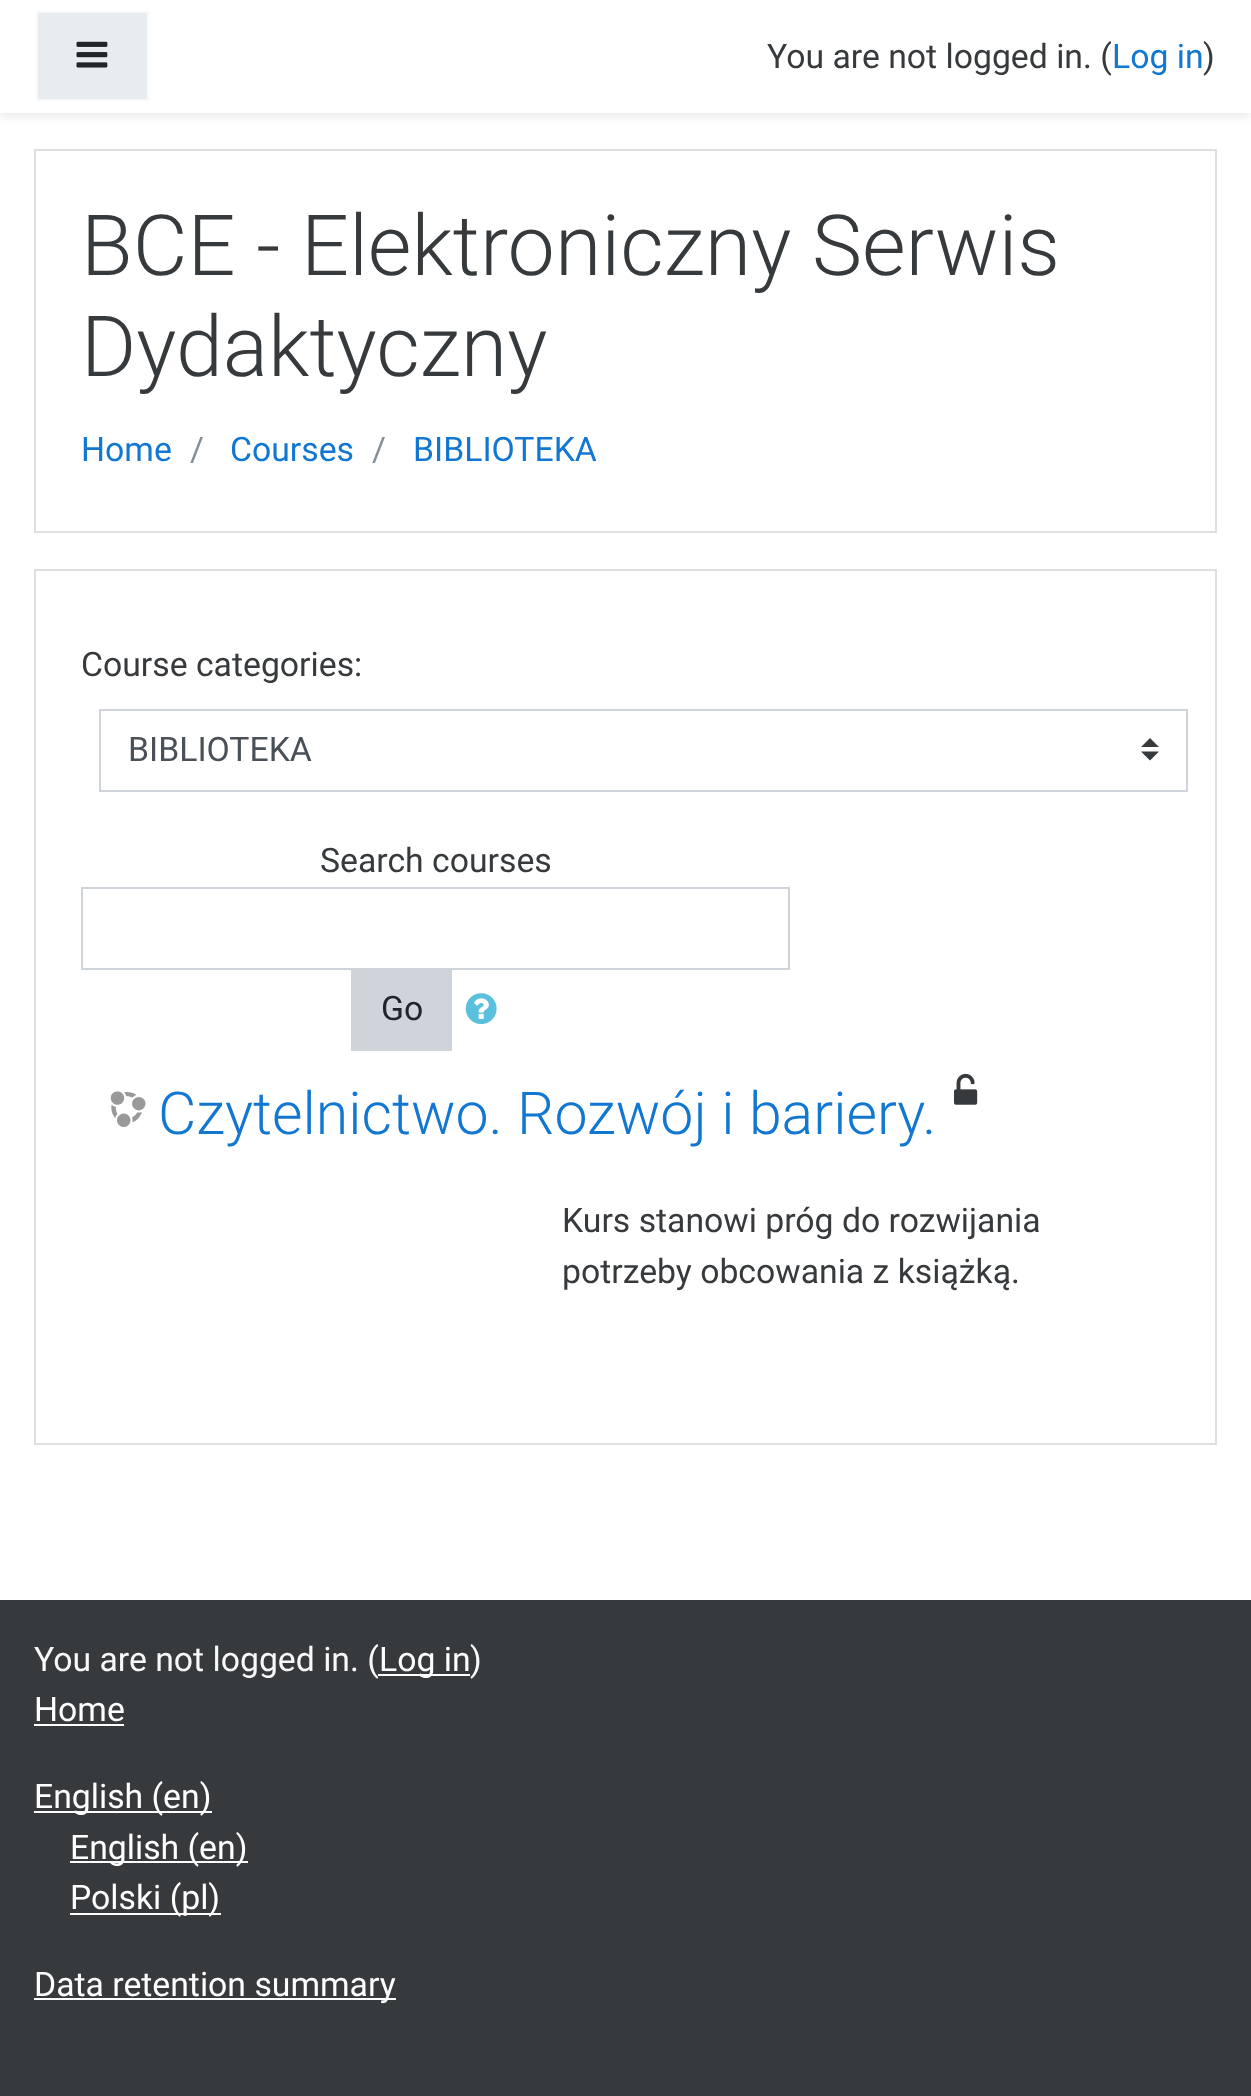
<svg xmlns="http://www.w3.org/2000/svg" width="1251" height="2096">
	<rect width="100%" height="100%" fill="#FFFFFF" />
	<rect x="0" y="5" width="1251" height="112" fill="#000000" fill-opacity="0.08" filter="blur(4.5px)" />
	<rect x="0" y="0" width="1251" height="113" fill="#FFFFFF" />
	<rect x="37" y="12" width="111" height="88" fill="#E9ECEF" stroke="#F8F9FA" stroke-width="2" />
	<image x="76" y="41" width="32" height="27" href="assets/img1.png" />
	<text x="767" y="68" font-family="Roboto" font-size="33.75" fill="#373A3C">You are not logged in. (</text>
	<text x="1112" y="68" font-family="Roboto" font-size="33.75" fill="#1177D1">Log in</text>
	<text x="1203" y="68" font-family="Roboto" font-size="33.75" fill="#373A3C">)</text>
	<rect x="35" y="150" width="1181" height="382" fill="none" stroke="#DFDFDF" stroke-width="2" />
	<g font-family="Roboto" font-size="84.4" font-weight="300" fill="#373A3C">
		<text x="81" y="275">BCE - Elektroniczny Serwis</text>
		<text x="81" y="376">Dydaktyczny</text>
	</g>
	<text x="81" y="461" font-family="Roboto" font-size="33.75" fill="#1177D1">Home</text>
	<text x="190" y="461" font-family="Roboto" font-size="33.75" fill="#868E96">/</text>
	<text x="230" y="461" font-family="Roboto" font-size="33.75" fill="#1177D1">Courses</text>
	<text x="372" y="461" font-family="Roboto" font-size="33.75" fill="#868E96">/</text>
	<text x="413" y="461" font-family="Roboto" font-size="33.75" fill="#1177D1">BIBLIOTEKA</text>
	<rect x="35" y="570" width="1181" height="874" fill="none" stroke="#DFDFDF" stroke-width="2" />
	<text x="81" y="676" font-family="Roboto" font-size="33.75" fill="#373A3C">Course categories:</text>
	<path d="M1150 738L1141 747H1159ZM1150 760.5L1141 751.5H1159Z" fill="#373A3C" />
	<rect x="100" y="710" width="1087" height="81" fill="none" stroke="#CED4DA" stroke-width="2" />
	<text x="128" y="761" font-family="Roboto" font-size="33.75" fill="#495057">BIBLIOTEKA</text>
	<text x="320" y="872" font-family="Roboto" font-size="33.75" fill="#373A3C">Search courses</text>
	<rect x="82" y="888" width="707" height="81" fill="none" stroke="#CED4DA" stroke-width="2" />
	<rect x="351" y="970" width="101" height="81" fill="#CED4DA" />
	<text x="381" y="1020" font-family="Roboto" font-size="33.75" fill="#212529">Go</text>
	<image x="465" y="993" width="32" height="32" href="assets/img2.png" />
	<image x="110" y="1091" width="36" height="36" href="assets/img3.png" />
	<text x="158" y="1134" font-family="Roboto" font-size="59" font-weight="300" fill="#1177D1">Czytelnictwo. Rozwój i bariery.</text>
	<image x="954" y="1073" width="24" height="32" href="assets/img4.png" />
	<g font-family="Roboto" font-size="33.75" fill="#373A3C">
		<text x="562" y="1232">Kurs stanowi próg do rozwijania</text>
		<text x="562" y="1283">potrzeby obcowania z książką.</text>
	</g>
	<rect x="0" y="1600" width="1251" height="496" fill="#373A3C" />
	<text x="34" y="1671" font-family="Roboto" font-size="33.75" fill="#F8F9FA">You are not logged in. (</text>
	<rect x="378" y="1674" width="92" height="2" fill="#FFFFFF" />
	<text x="379" y="1671" font-family="Roboto" font-size="33.75" fill="#FFFFFF">Log in</text>
	<text x="470" y="1671" font-family="Roboto" font-size="33.75" fill="#F8F9FA">)</text>
	<text x="34" y="1721" font-family="Roboto" font-size="33.75" fill="#FFFFFF">Home</text>
	<rect x="34" y="1724" width="90" height="2" fill="#FFFFFF" />
	<rect x="34" y="1811" width="178" height="2" fill="#FFFFFF" />
	<text x="34" y="1808" font-family="Roboto" font-size="33.75" fill="#FFFFFF">English (en)</text>
	<rect x="70" y="1861" width="178" height="2" fill="#FFFFFF" />
	<text x="70" y="1859" font-family="Roboto" font-size="33.75" fill="#FFFFFF">English (en)</text>
	<rect x="70" y="1913" width="151" height="2" fill="#FFFFFF" />
	<text x="70" y="1909" font-family="Roboto" font-size="33.75" fill="#FFFFFF">Polski (pl)</text>
	<rect x="34" y="1998" width="362" height="2" fill="#FFFFFF" />
	<text x="34" y="1996" font-family="Roboto" font-size="33.75" fill="#FFFFFF">Data retention summary</text>
</svg>
